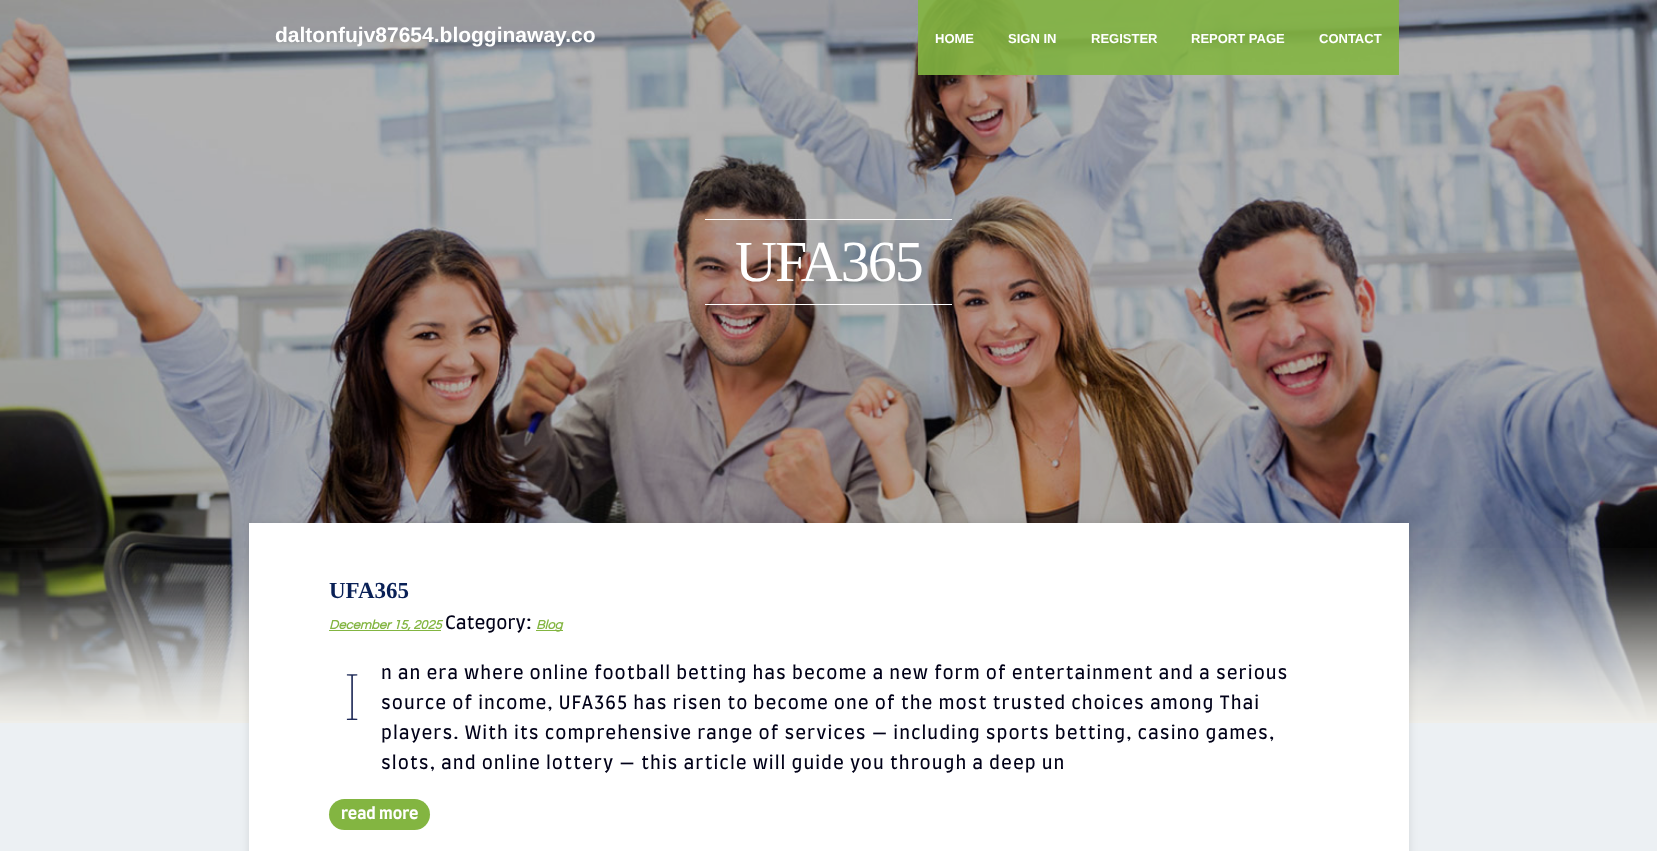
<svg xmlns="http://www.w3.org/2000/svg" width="1657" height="851">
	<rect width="100%" height="100%" fill="#ECF0F3" />
	<image x="0" y="0" width="1657" height="721" href="assets/img1.png" />
	<text x="275" y="42" font-family="Liberation Sans" font-size="21" font-weight="700" fill="#FFFFFF">daltonfujv87654.blogginaway.co</text>
	<rect x="918" y="0" width="73" height="75" fill="#83B541" fill-opacity="0.9" />
	<text x="935" y="43" font-family="Liberation Sans" font-size="13" font-weight="700" fill="#FFFFFF">HOME</text>
	<rect x="991" y="0" width="83" height="75" fill="#83B541" fill-opacity="0.9" />
	<text x="1008" y="43" font-family="Liberation Sans" font-size="13" font-weight="700" fill="#FFFFFF">SIGN IN</text>
	<rect x="1074" y="0" width="100" height="75" fill="#83B541" fill-opacity="0.9" />
	<text x="1091" y="43" font-family="Liberation Sans" font-size="13" font-weight="700" fill="#FFFFFF">REGISTER</text>
	<rect x="1174" y="0" width="128" height="75" fill="#83B541" fill-opacity="0.9" />
	<text x="1191" y="43" font-family="Liberation Sans" font-size="13" font-weight="700" fill="#FFFFFF">REPORT PAGE</text>
	<rect x="1302" y="0" width="97" height="75" fill="#83B541" fill-opacity="0.9" />
	<text x="1319" y="43" font-family="Liberation Sans" font-size="13" font-weight="700" fill="#FFFFFF">CONTACT</text>
	<rect x="705" y="219" width="247" height="1" fill="#FFFFFF" />
	<rect x="705" y="304" width="247" height="1" fill="#FFFFFF" />
	<text x="735" y="281" font-family="Liberation Serif" font-size="58" letter-spacing="-2" fill="#FFFFFF">UFA365</text>
	<image x="0" y="548" width="1657" height="175" href="assets/img2.png" />
	<rect x="249" y="523" width="1160" height="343" fill="#000000" fill-opacity="0.1" filter="blur(5px)" />
	<rect x="249" y="523" width="1160" height="328" fill="#FFFFFF" />
	<text x="329" y="598" font-family="Liberation Serif" font-size="23" font-weight="700" fill="#092056">UFA365</text>
	<rect x="329" y="630" width="112" height="1" fill="#83B541" />
	<text x="329" y="629" font-family="Questrial" font-size="13" font-weight="700" font-style="italic" fill="#83B541">December 15, 2025</text>
	<text x="445" y="629" font-family="Farro" font-size="18" fill="#010118">Category:</text>
	<rect x="536" y="630" width="27" height="1" fill="#83B541" />
	<text x="536" y="629" font-family="Questrial" font-size="13" font-weight="700" font-style="italic" fill="#83B541">Blog</text>
	<text x="343" y="720" font-family="Noto Sans" font-size="64" font-weight="100" letter-spacing="1" fill="#1F2B58">I</text>
	<g font-family="Farro" font-size="18" letter-spacing="1" fill="#010118">
		<text x="381" y="679">n an era where online football betting has become a new form of entertainment and a serious</text>
		<text x="381" y="709">source of income, UFA365 has risen to become one of the most trusted choices among Thai</text>
		<text x="381" y="739">players. With its comprehensive range of services — including sports betting, casino games,</text>
		<text x="381" y="769">slots, and online lottery — this article will guide you through a deep un</text>
	</g>
	<rect x="329" y="799" width="101" height="31" rx="15.5" fill="#83B541" />
	<text x="341" y="819" font-family="Farro" font-size="16" font-weight="700" fill="#FFFFFF">read more</text>
</svg>
